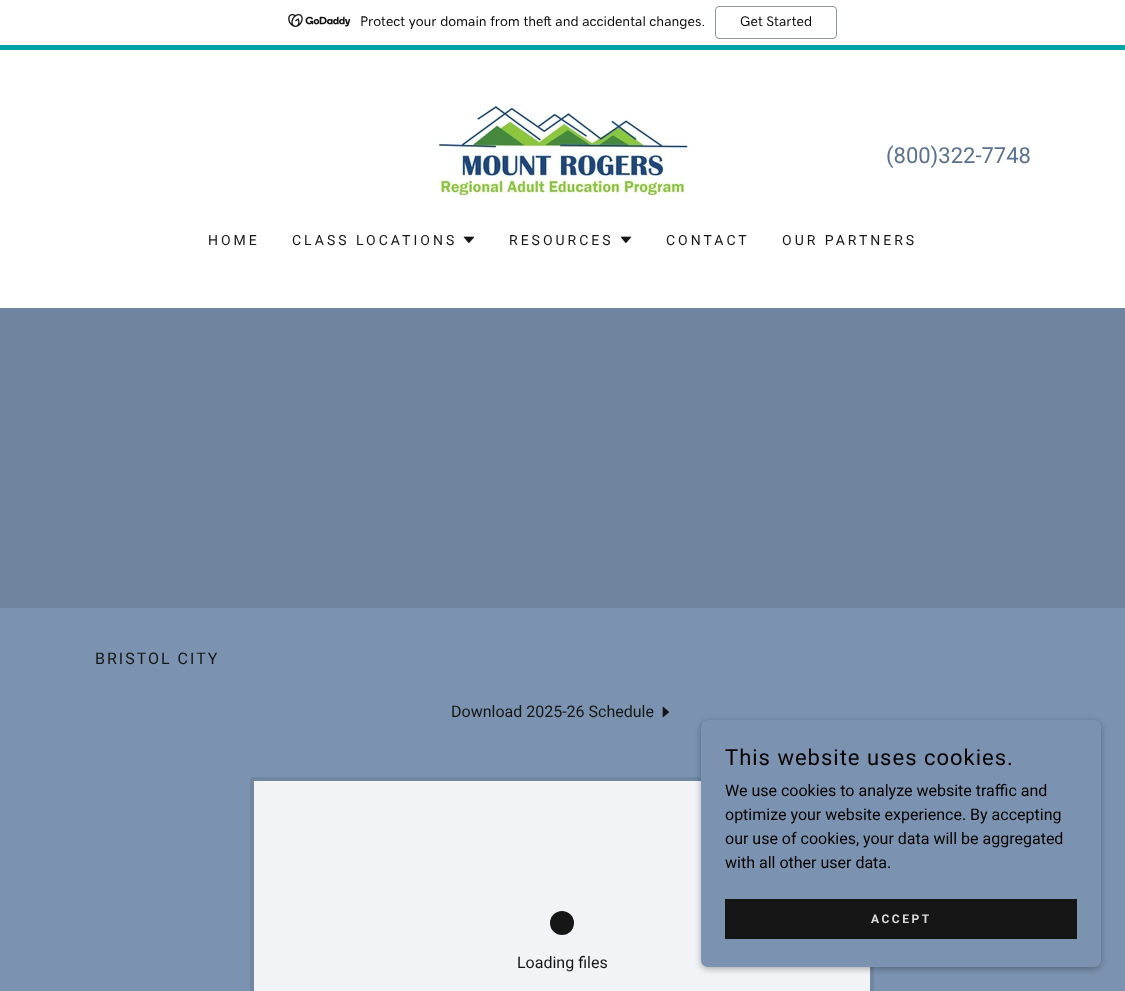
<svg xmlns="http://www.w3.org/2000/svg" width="1125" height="991">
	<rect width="100%" height="100%" fill="#7B93B1" />
	<rect x="0" y="0" width="1125" height="308" fill="#FFFFFF" />
	<rect x="0" y="45" width="1125" height="5" fill="#00A4A6" />
	<image x="288" y="14" width="63" height="13" href="assets/img1.png" />
	<text x="360" y="26" font-family="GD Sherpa" font-size="14" font-weight="500" fill="#000000">Protect your domain from theft and accidental changes.</text>
	<rect x="715.5" y="6.5" width="121" height="32" rx="3.5" fill="none" stroke="#8995A9" />
	<text x="740" y="26" font-family="GD Sherpa" font-size="14" font-weight="500" fill="#000000">Get Started</text>
	<image x="434" y="106" width="256" height="91" href="assets/img2.png" />
	<text x="886" y="163" font-family="Roboto" font-size="22" fill="#5B728F">(800)322-7748</text>
	<g font-family="Roboto" font-size="14" letter-spacing="3" fill="#161616">
		<text x="208" y="245">HOME</text>
		<text x="292" y="245">CLASS LOCATIONS</text>
	</g>
	<image x="463" y="236" width="12" height="8" href="assets/img3.png" />
	<text x="509" y="245" font-family="Roboto" font-size="14" letter-spacing="3" fill="#161616">RESOURCES</text>
	<image x="620" y="236" width="12" height="8" href="assets/img3.png" />
	<g font-family="Roboto" font-size="14" letter-spacing="3" fill="#161616">
		<text x="666" y="245">CONTACT</text>
		<text x="782" y="245">OUR PARTNERS</text>
	</g>
	<rect x="0" y="308" width="1125" height="300" fill="#6F859F" />
	<text x="95" y="664" font-family="Roboto" font-size="16" letter-spacing="2" fill="#161616">BRISTOL CITY</text>
	<text x="451" y="717" font-family="Roboto" font-size="16" fill="#161616">Download 2025-26 Schedule</text>
	<image x="662" y="706" width="8" height="12" href="assets/img4.png" />
	<rect x="250" y="777" width="624" height="214" fill="#7086A1" />
	<rect x="254" y="781" width="616" height="210" fill="#F1F3F6" />
	<circle cx="562" cy="923" r="12" fill="#161616" />
	<text x="517" y="968" font-family="Roboto" font-size="16" fill="#161616">Loading files</text>
	<rect x="701" y="722" width="400" height="247" rx="7" fill="#000000" fill-opacity="0.3" filter="blur(3px)" />
	<rect x="701" y="720" width="400" height="247" rx="7" fill="#7B93B1" />
	<text x="725" y="765" font-family="Roboto" font-size="22" letter-spacing="1" fill="#000000">This website uses cookies.</text>
	<g font-family="Roboto" font-size="16" fill="#000000">
		<text x="725" y="796">We use cookies to analyze website traffic and</text>
		<text x="725" y="820">optimize your website experience. By accepting</text>
		<text x="725" y="844">our use of cookies, your data will be aggregated</text>
		<text x="725" y="868">with all other user data.</text>
	</g>
	<rect x="725" y="899" width="352" height="40" fill="#161616" />
	<text x="871" y="923" font-family="Roboto" font-size="12" font-weight="700" letter-spacing="2.5" fill="#DBDBDB">ACCEPT</text>
</svg>
